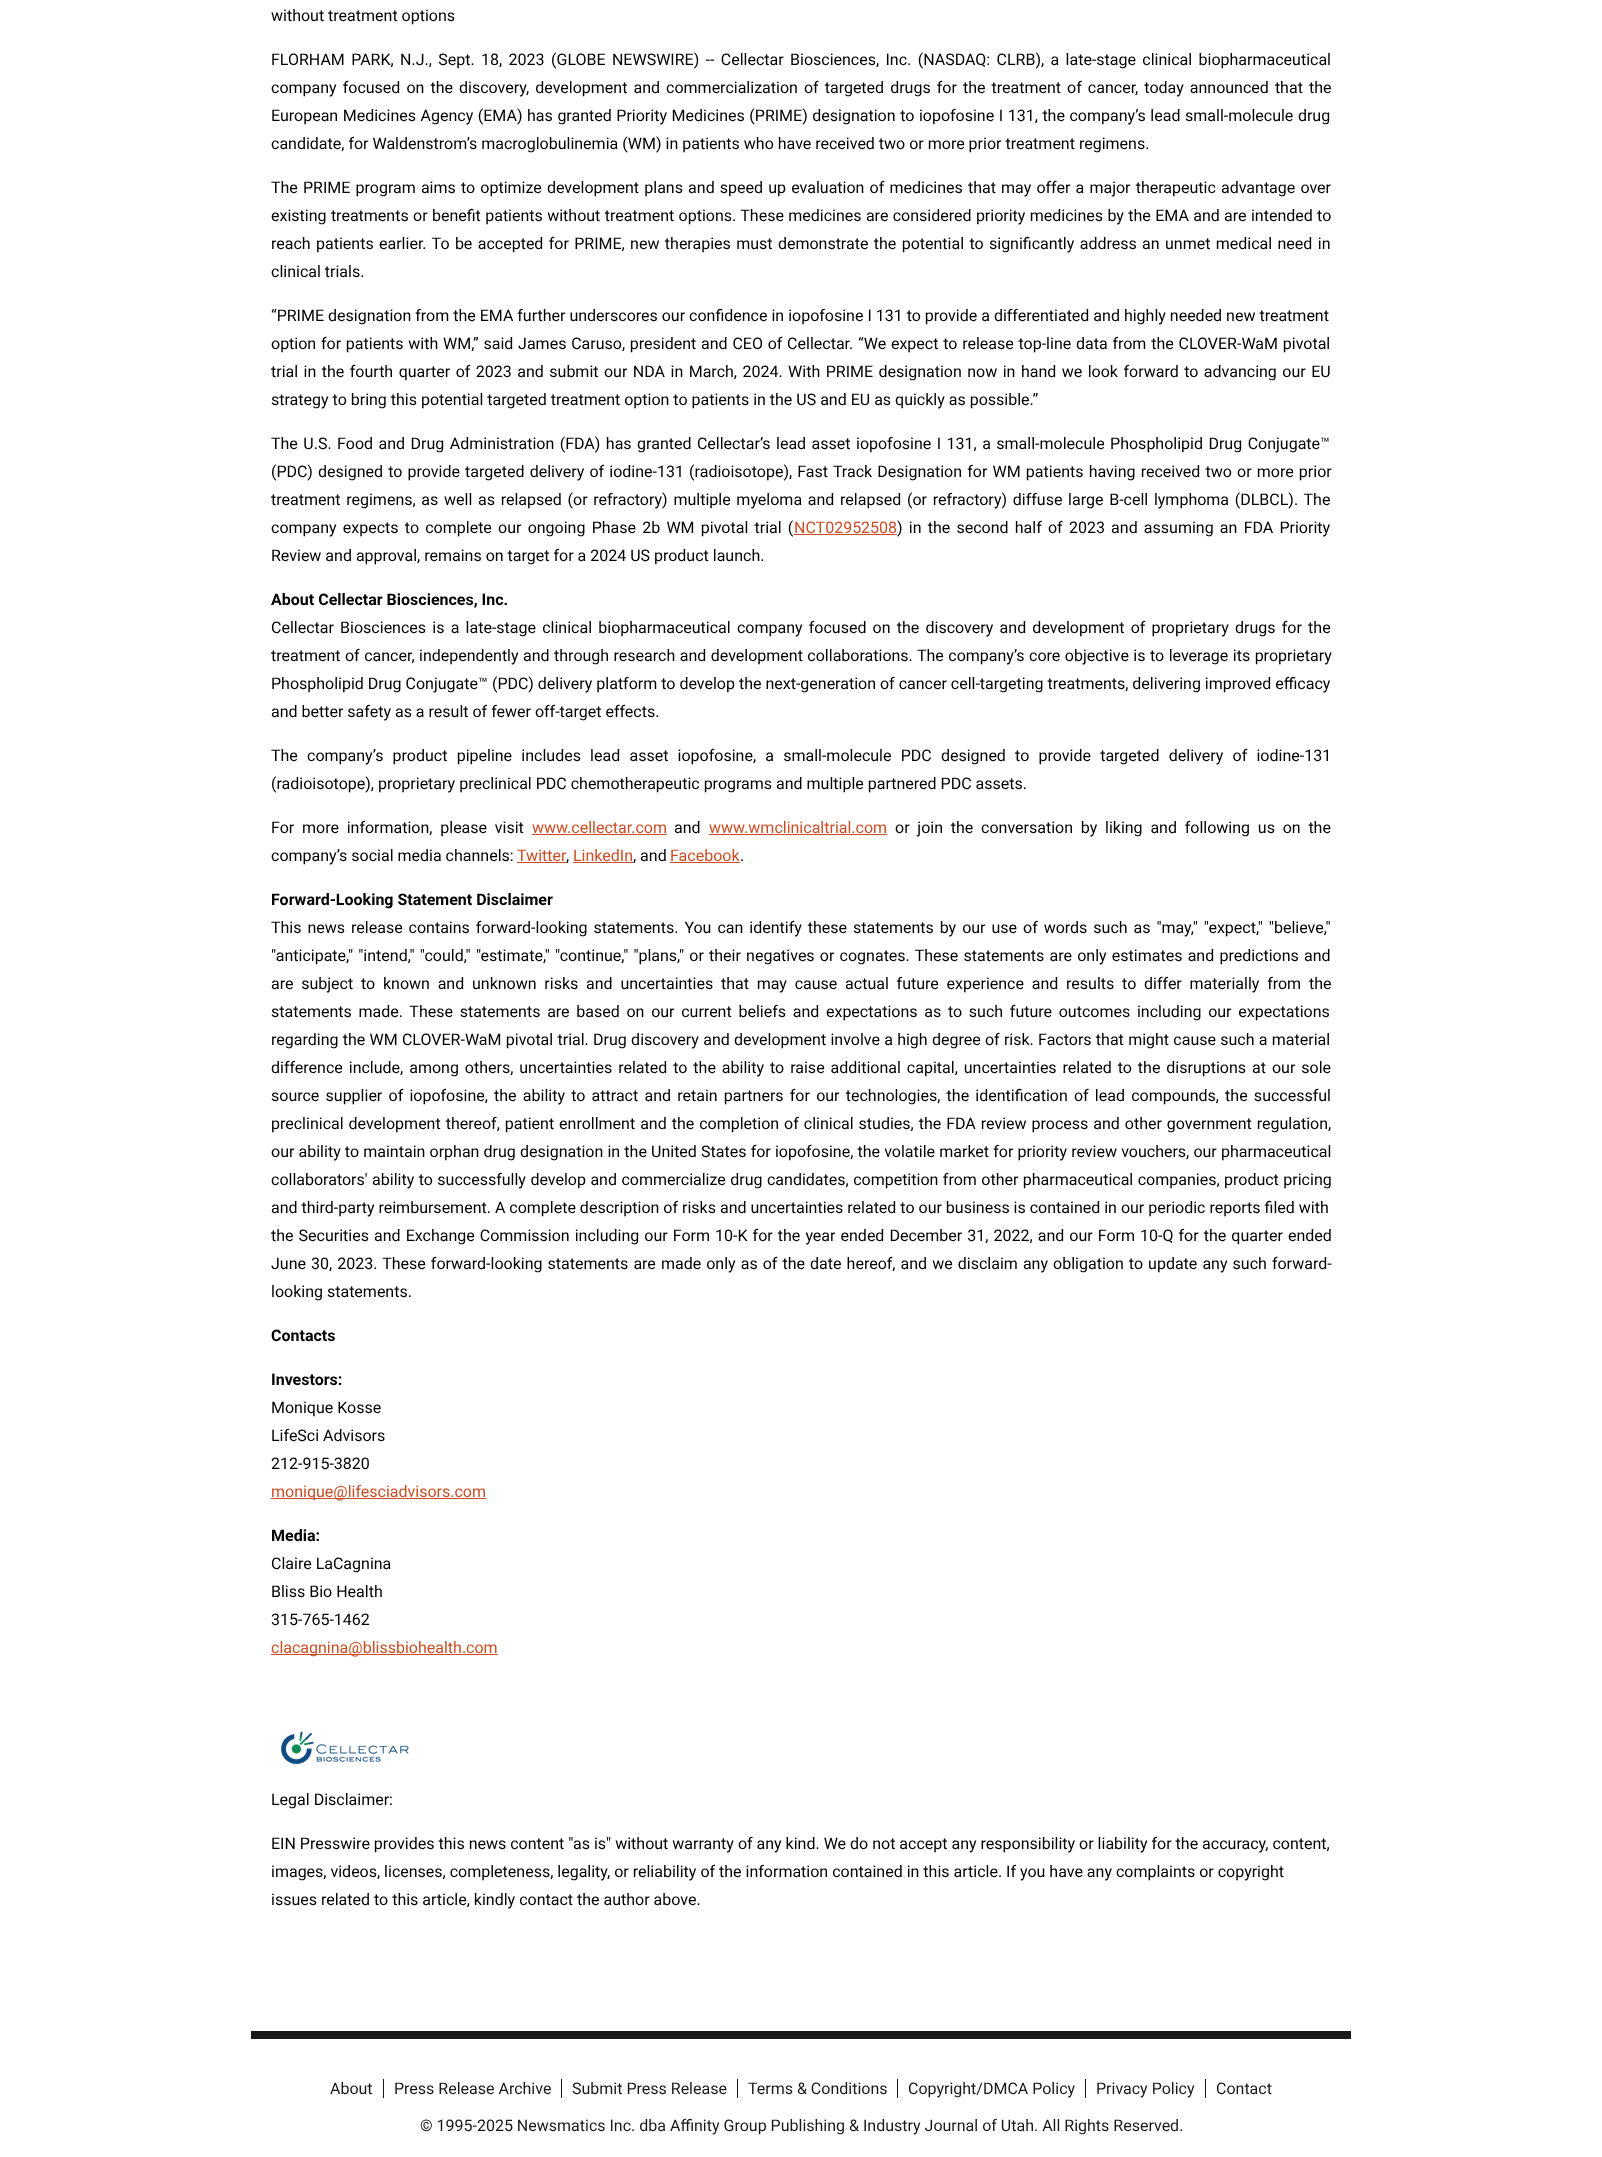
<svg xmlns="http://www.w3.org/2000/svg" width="1602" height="2157">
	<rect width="100%" height="100%" fill="#FFFFFF" />
	<g font-family="Roboto" font-size="16" fill="#000000">
		<text x="271" y="21">without treatment options</text>
		<text x="271" y="65" word-spacing="2.4">FLORHAM PARK, N.J., Sept.</text>
		<text x="481" y="65" word-spacing="2.4">18, 2023</text>
		<text x="551" y="65" word-spacing="2.4">(GLOBE NEWSWIRE) -- Cellectar Biosciences, Inc. (NASDAQ: CLRB), a late-stage clinical biopharmaceutical</text>
		<text x="271" y="93" word-spacing="2.1">company focused on the discovery, development and commercialization of targeted drugs for the treatment of cancer, today announced that the</text>
		<text x="271" y="121" word-spacing="0.6">European Medicines Agency (EMA) has granted Priority Medicines (PRIME) designation to iopofosine I 131, the company’s lead small-molecule drug</text>
		<text x="271" y="149">candidate, for Waldenstrom’s macroglobulinemia (WM) in patients who have received two or more prior treatment regimens.</text>
		<text x="271" y="193" word-spacing="1.2">The PRIME program aims to optimize development plans and speed up evaluation of medicines that may offer a major therapeutic advantage over</text>
		<text x="271" y="221" word-spacing="0.4">existing treatments or benefit patients without treatment options. These medicines are considered priority medicines by the EMA and are intended to</text>
		<text x="271" y="249" word-spacing="1.4">reach patients earlier. To be accepted for PRIME, new therapies must demonstrate the potential to significantly address an unmet medical need in</text>
		<text x="271" y="277">clinical trials.</text>
		<text x="271" y="321">“PRIME designation from the EMA further underscores our confidence in iopofosine I 131 to provide a differentiated and highly needed new treatment</text>
		<text x="271" y="349" word-spacing="0.8">option for patients with WM,” said James Caruso, president and CEO of Cellectar. “We expect to release top-line data from the CLOVER-WaM pivotal</text>
		<text x="271" y="377" word-spacing="1.5">trial in the fourth quarter of 2023 and submit our NDA in March, 2024. With PRIME designation now in hand we look forward to advancing our EU</text>
		<text x="271" y="405">strategy to bring this potential targeted treatment option to patients in the US and EU as quickly as possible.”</text>
		<text x="271" y="449" word-spacing="1.5">The U.S. Food and Drug Administration (FDA) has granted Cellectar’s lead asset iopofosine I 131, a small-molecule Phospholipid Drug Conjugate™</text>
		<text x="271" y="477" word-spacing="1.2">(PDC) designed to provide targeted delivery of iodine-131 (radioisotope), Fast Track Designation for WM patients having received two or more prior</text>
		<text x="271" y="505" word-spacing="1.75">treatment regimens, as well as relapsed (or refractory) multiple myeloma and relapsed (or refractory) diffuse large B-cell lymphoma (DLBCL). The</text>
		<text x="271" y="533" word-spacing="2.25">company expects to complete our ongoing Phase 2b WM pivotal trial (</text>
	</g>
	<text x="794" y="533" font-family="Roboto" font-size="16" fill="#CC4D24">NCT02952508</text>
	<rect x="794" y="534" width="103" height="1" fill="#CC4D24" />
	<g font-family="Roboto" font-size="16" fill="#000000">
		<text x="897" y="533" word-spacing="2.25">) in the second half of 2023 and assuming an FDA Priority</text>
		<text x="271" y="561">Review and approval, remains on target for a 2024 US product launch.</text>
	</g>
	<text x="271" y="605" font-family="Roboto" font-size="16" font-weight="700" fill="#000000">About Cellectar Biosciences, Inc.</text>
	<g font-family="Roboto" font-size="16" fill="#000000">
		<text x="271" y="633" word-spacing="2.25">Cellectar Biosciences is a late-stage clinical biopharmaceutical company focused on the discovery and development of proprietary drugs for the</text>
		<text x="271" y="661" word-spacing="0.5">treatment of cancer, independently and through research and development collaborations. The company’s core objective is to leverage its proprietary</text>
		<text x="271" y="689">Phospholipid Drug Conjugate™ (PDC) delivery platform to develop the next-generation of cancer cell-targeting treatments, delivering improved efficacy</text>
		<text x="271" y="717">and better safety as a result of fewer off-target effects.</text>
		<text x="271" y="761" word-spacing="5.25">The company’s product pipeline includes lead asset iopofosine, a small-molecule PDC designed to provide targeted delivery of iodine-131</text>
		<text x="271" y="789">(radioisotope), proprietary preclinical PDC chemotherapeutic programs and multiple partnered PDC assets.</text>
		<text x="271" y="833" word-spacing="3.8">For more information, please visit</text>
	</g>
	<text x="532" y="833" font-family="Roboto" font-size="16" fill="#CC4D24">www.cellectar.com</text>
	<rect x="532" y="834" width="135" height="1" fill="#CC4D24" />
	<text x="674" y="833" font-family="Roboto" font-size="16" fill="#000000">and</text>
	<text x="709" y="833" font-family="Roboto" font-size="16" fill="#CC4D24">www.wmclinicaltrial.com</text>
	<rect x="709" y="834" width="178" height="1" fill="#CC4D24" />
	<g font-family="Roboto" font-size="16" fill="#000000">
		<text x="895" y="833" word-spacing="3.8">or join the conversation by liking and following us on the</text>
		<text x="271" y="861">company’s social media channels:</text>
	</g>
	<text x="517" y="861" font-family="Roboto" font-size="16" fill="#CC4D24">Twitter</text>
	<rect x="517" y="862" width="49" height="1" fill="#CC4D24" />
	<text x="573" y="861" font-family="Roboto" font-size="16" fill="#CC4D24">LinkedIn</text>
	<rect x="573" y="862" width="60" height="1" fill="#CC4D24" />
	<text x="633" y="861" font-family="Roboto" font-size="16" fill="#000000">, and</text>
	<text x="670" y="861" font-family="Roboto" font-size="16" fill="#CC4D24">Facebook</text>
	<rect x="670" y="862" width="70" height="1" fill="#CC4D24" />
	<g font-family="Roboto" font-size="16" fill="#000000">
		<text x="566" y="861">,</text>
		<text x="740" y="861">.</text>
	</g>
	<text x="271" y="905" font-family="Roboto" font-size="16" font-weight="700" fill="#000000">Forward-Looking Statement Disclaimer</text>
	<g font-family="Roboto" font-size="16" fill="#000000">
		<text x="271" y="933" word-spacing="2">This news release contains forward-looking statements. You can identify these statements by our use of words such as "may," "expect," "believe,"</text>
		<text x="271" y="961" word-spacing="1.25">"anticipate," "intend," "could," "estimate," "continue," "plans," or their negatives or cognates. These statements are only estimates and predictions and</text>
		<text x="271" y="989" word-spacing="3.8">are subject to known and unknown risks and uncertainties that may cause actual future experience and results to differ materially from the</text>
		<text x="271" y="1017" word-spacing="2.75">statements made. These statements are based on our current beliefs and expectations as to such future outcomes including our expectations</text>
		<text x="271" y="1045" word-spacing="0.3">regarding the WM CLOVER-WaM pivotal trial. Drug discovery and development involve a high degree of risk. Factors that might cause such a material</text>
		<text x="271" y="1073" word-spacing="2">difference include, among others, uncertainties related to the ability to raise additional capital, uncertainties related to the disruptions at our sole</text>
		<text x="271" y="1101" word-spacing="2.25">source supplier of iopofosine, the ability to attract and retain partners for our technologies, the identification of lead compounds, the successful</text>
		<text x="271" y="1129" word-spacing="1">preclinical development thereof, patient enrollment and the completion of clinical studies, the FDA review process and other government regulation,</text>
		<text x="271" y="1157" word-spacing="0.2">our ability to maintain orphan drug designation in the United States for iopofosine, the volatile market for priority review vouchers, our pharmaceutical</text>
		<text x="271" y="1185" word-spacing="0.5">collaborators' ability to successfully develop and commercialize drug candidates, competition from other pharmaceutical companies, product pricing</text>
		<text x="271" y="1213">and third-party reimbursement. A complete description of risks and uncertainties related to our business is contained in our periodic reports filed with</text>
		<text x="271" y="1241" word-spacing="1.1">the Securities and Exchange Commission including our Form 10-K for the year ended December 31, 2022, and our Form 10-Q for the quarter ended</text>
		<text x="271" y="1269" word-spacing="1.1">June 30, 2023. These forward-looking statements are made only as of the date hereof, and we disclaim any obligation to update any such forward-</text>
		<text x="271" y="1297">looking statements.</text>
	</g>
	<g font-family="Roboto" font-size="16" font-weight="700" fill="#000000">
		<text x="271" y="1341">Contacts</text>
		<text x="271" y="1385">Investors:</text>
	</g>
	<g font-family="Roboto" font-size="16" fill="#000000">
		<text x="271" y="1413">Monique Kosse</text>
		<text x="271" y="1441">LifeSci Advisors</text>
		<text x="271" y="1469">212-915-3820</text>
	</g>
	<rect x="271" y="1498" width="215" height="1" fill="#CC4D24" />
	<text x="271" y="1497" font-family="Roboto" font-size="16" fill="#CC4D24">monique@lifesciadvisors.com</text>
	<text x="271" y="1541" font-family="Roboto" font-size="16" font-weight="700" fill="#000000">Media:</text>
	<g font-family="Roboto" font-size="16" fill="#000000">
		<text x="271" y="1569">Claire LaCagnina</text>
		<text x="271" y="1597">Bliss Bio Health</text>
		<text x="271" y="1625">315-765-1462</text>
	</g>
	<rect x="271" y="1654" width="227" height="1" fill="#CC4D24" />
	<text x="271" y="1653" font-family="Roboto" font-size="16" fill="#CC4D24">clacagnina@blissbiohealth.com</text>
	<image x="280" y="1731" width="129" height="34" href="assets/img1.png" />
	<g font-family="Roboto" font-size="16" fill="#000000">
		<text x="271" y="1805">Legal Disclaimer:</text>
		<text x="271" y="1849">EIN Presswire provides this news content "as is" without warranty of any kind. We do not accept any responsibility or liability for the accuracy, content,</text>
		<text x="271" y="1877">images, videos, licenses, completeness, legality, or reliability of the information contained in this article. If you have any complaints or copyright</text>
		<text x="271" y="1905">issues related to this article, kindly contact the author above.</text>
	</g>
	<rect x="251" y="2031" width="1100" height="8" fill="#191919" />
	<rect x="383" y="2079" width="1" height="19" fill="#191919" />
	<text x="330" y="2094" font-family="Roboto" font-size="16" fill="#191919">About</text>
	<rect x="561" y="2079" width="1" height="19" fill="#191919" />
	<text x="394" y="2094" font-family="Roboto" font-size="16" fill="#191919">Press Release Archive</text>
	<rect x="737" y="2079" width="1" height="19" fill="#191919" />
	<text x="572" y="2094" font-family="Roboto" font-size="16" fill="#191919">Submit Press Release</text>
	<rect x="897" y="2079" width="1" height="19" fill="#191919" />
	<text x="748" y="2094" font-family="Roboto" font-size="16" fill="#191919">Terms &amp; Conditions</text>
	<rect x="1085" y="2079" width="1" height="19" fill="#191919" />
	<text x="908" y="2094" font-family="Roboto" font-size="16" fill="#191919">Copyright/DMCA Policy</text>
	<rect x="1205" y="2079" width="1" height="19" fill="#191919" />
	<g font-family="Roboto" font-size="16" fill="#191919">
		<text x="1096" y="2094">Privacy Policy</text>
		<text x="1216" y="2094">Contact</text>
		<text x="420" y="2131">© 1995-2025 Newsmatics Inc. dba Affinity Group Publishing &amp; Industry Journal of Utah. All Rights Reserved.</text>
	</g>
</svg>
